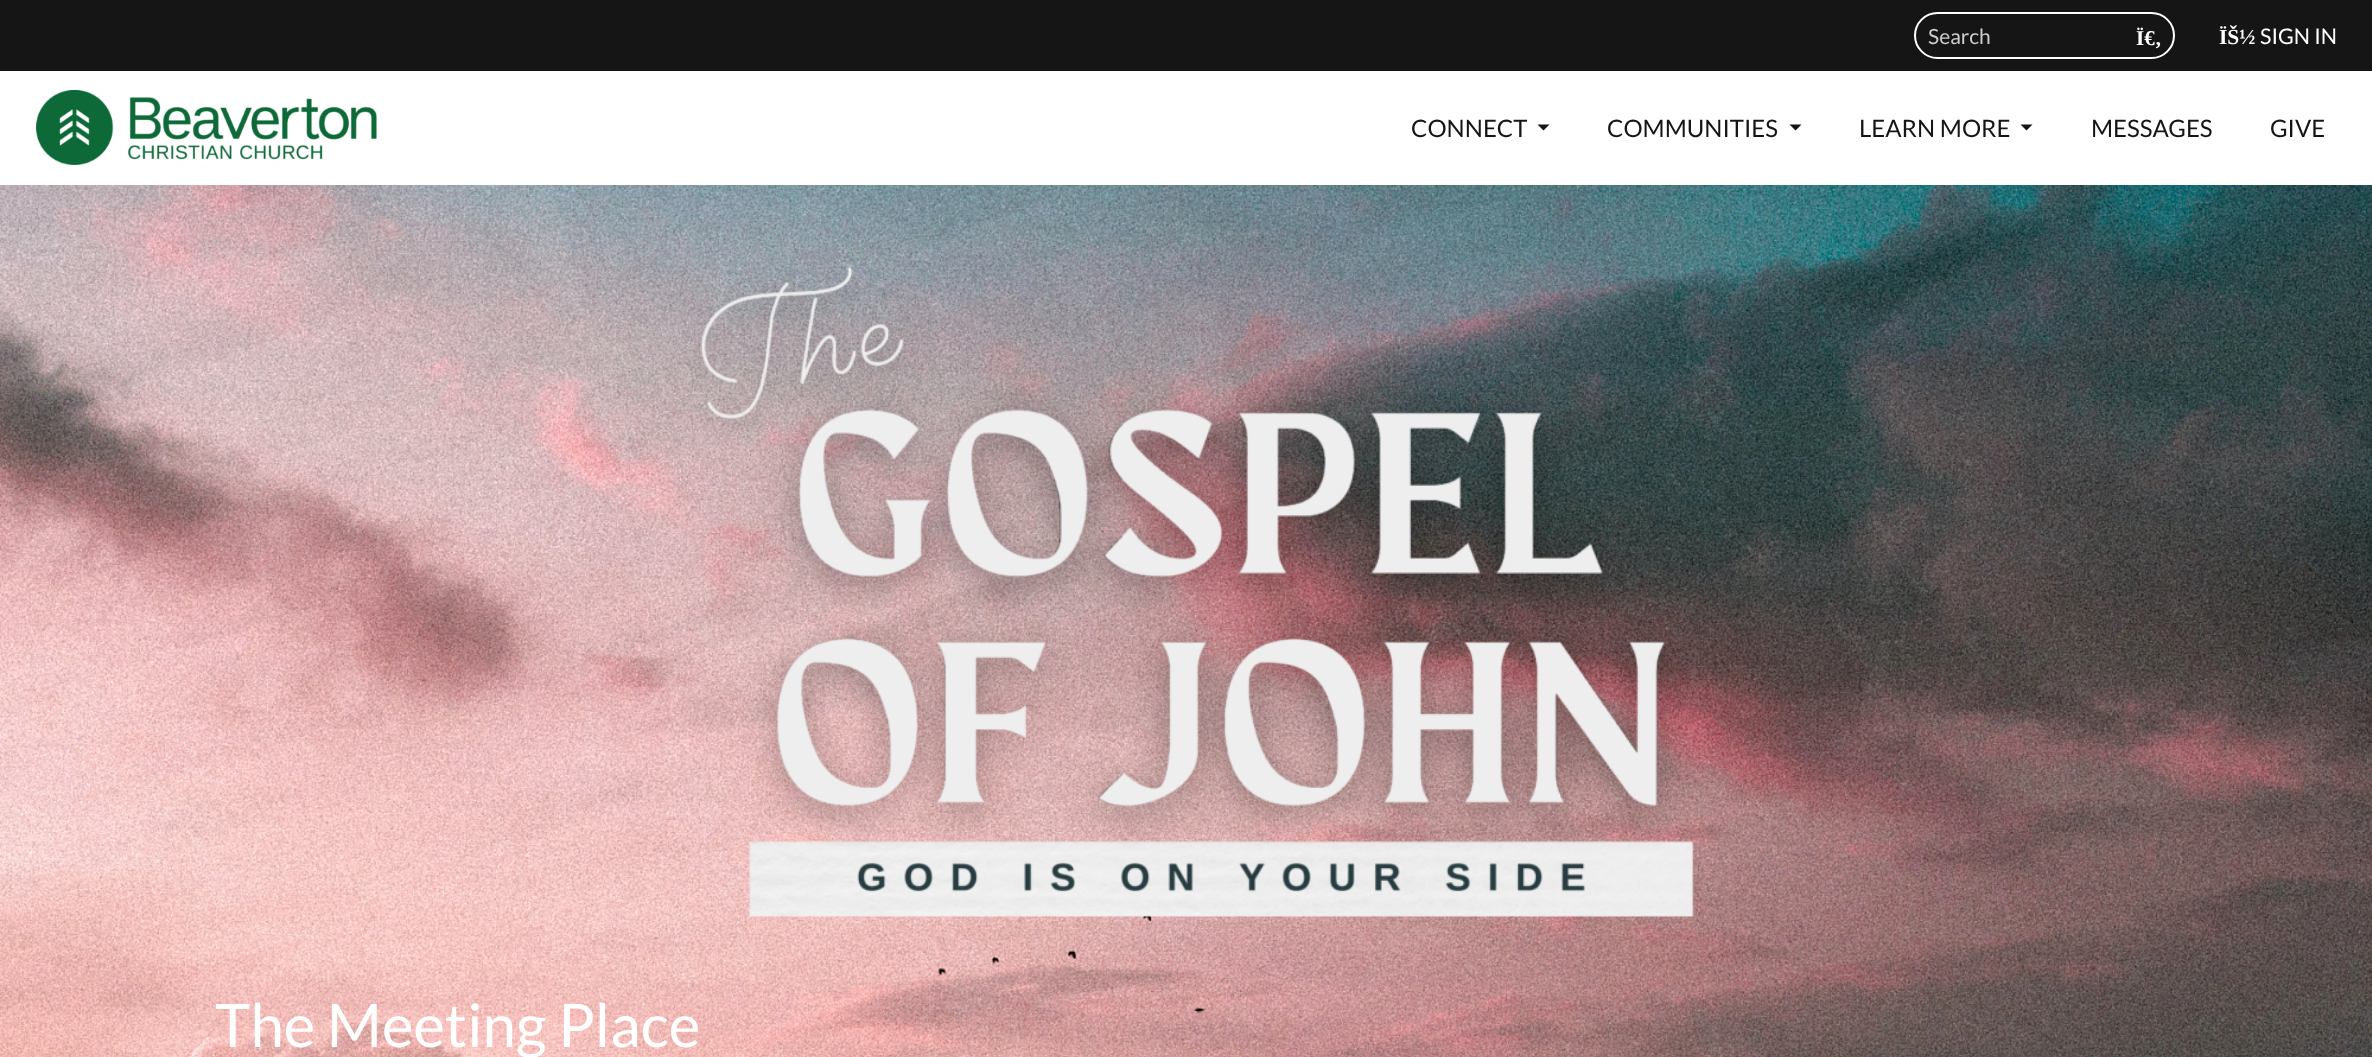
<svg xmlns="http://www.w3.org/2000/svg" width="2372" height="1057">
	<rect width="100%" height="100%" fill="#FFFFFF" />
	<rect x="0" y="0" width="2372" height="71" fill="#151516" />
	<rect x="1915" y="13" width="259" height="45" rx="22.5" fill="none" stroke="#FFFFFF" stroke-width="2" />
	<text x="1928" y="44" font-family="Lato" font-size="21" fill="#CCCCCC">Search</text>
	<text x="2136" y="45" font-family="Liberation Serif" font-size="21" font-weight="700" fill="#FFFFFF">Ï€‚</text>
	<text x="2219" y="44" font-family="Liberation Serif" font-size="21.5" font-weight="700" fill="#FFFFFF">ÏŠ½</text>
	<text x="2260" y="44" font-family="Lato" font-size="21.5" fill="#FFFFFF">SIGN IN</text>
	<image x="36" y="90" width="341" height="75" href="assets/img1.png" />
	<text x="1411" y="137" font-family="Lato" font-size="24" fill="#151516">CONNECT</text>
	<path d="M1537.5 124.5H1549.5L1543.5 130.5Z" fill="#151516" />
	<text x="1607" y="137" font-family="Lato" font-size="24" fill="#151516">COMMUNITIES</text>
	<path d="M1789.5 124.5H1801.5L1795.5 130.5Z" fill="#151516" />
	<text x="1859" y="137" font-family="Lato" font-size="24" fill="#151516">LEARN MORE</text>
	<path d="M2020.5 124.5H2032.5L2026.5 130.5Z" fill="#151516" />
	<g font-family="Lato" font-size="24" fill="#151516">
		<text x="2091" y="137">MESSAGES</text>
		<text x="2270" y="137">GIVE</text>
	</g>
	<image x="0" y="185" width="2372" height="872" href="assets/img2.png" />
	<image x="694" y="266" width="1000" height="651" href="assets/img3.png" />
	<text x="215" y="1047" font-family="Lato" font-size="60" fill="#FFFFFF">The Meeting Place</text>
</svg>
